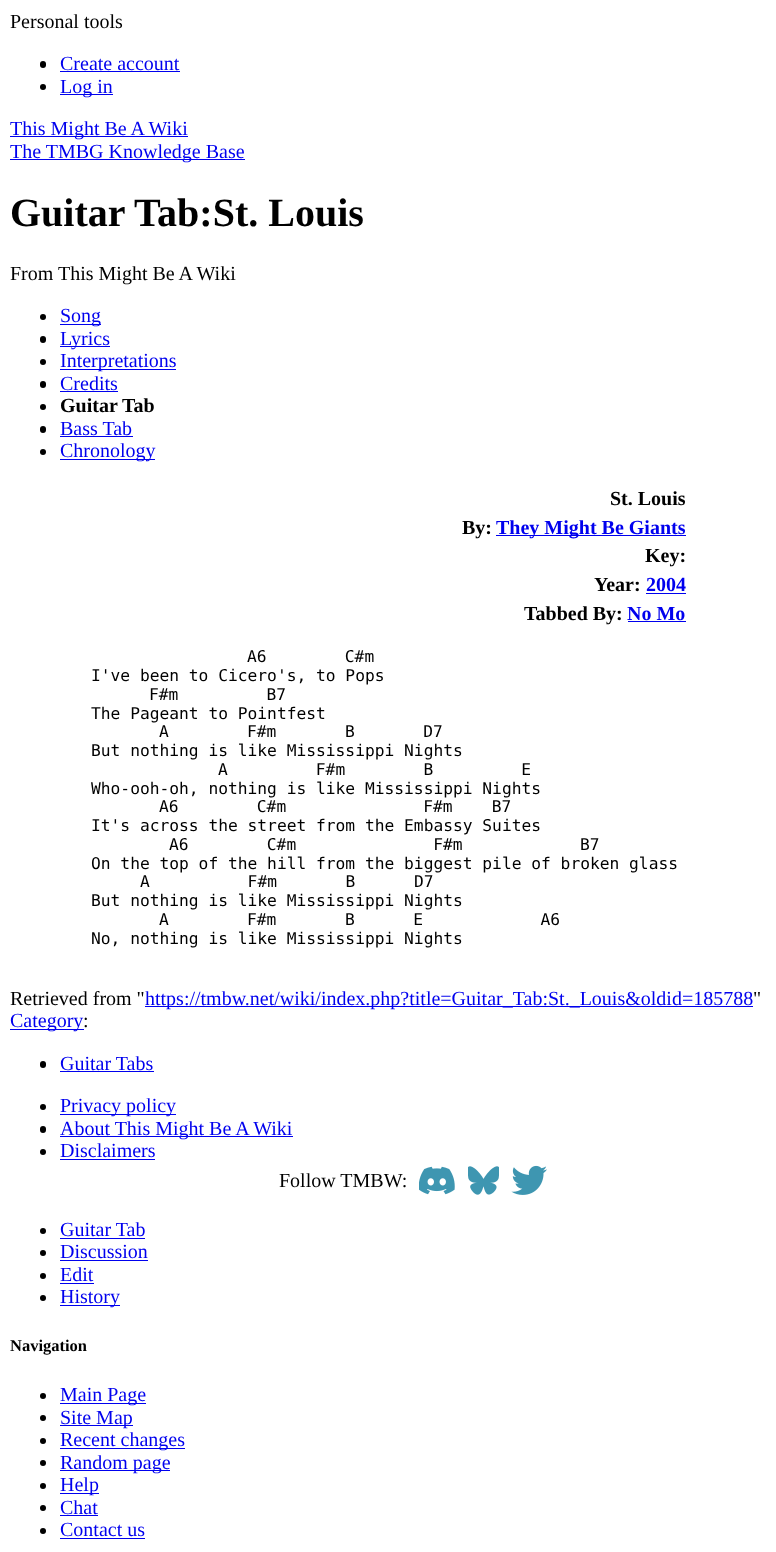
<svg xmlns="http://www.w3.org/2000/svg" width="776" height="1552">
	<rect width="100%" height="100%" fill="#FFFFFF" />
	<text x="10" y="28" font-family="Liberation Serif" font-size="20" fill="#000000">Personal tools</text>
	<rect x="40" y="61" width="6" height="7" rx="3" fill="#000000" />
	<text x="60" y="70" font-family="Liberation Serif" font-size="20" fill="#0000EE">Create account</text>
	<rect x="60" y="71" width="120" height="1" fill="#0000EE" />
	<circle cx="43" cy="87" r="3" fill="#000000" />
	<rect x="60" y="94" width="53" height="1" fill="#0000EE" />
	<text x="60" y="93" font-family="Liberation Serif" font-size="20" fill="#0000EE">Log in</text>
	<rect x="10" y="136" width="178" height="1" fill="#0000EE" />
	<text x="10" y="135" font-family="Liberation Serif" font-size="20" fill="#0000EE">This Might Be A Wiki</text>
	<rect x="10" y="159" width="235" height="1" fill="#0000EE" />
	<text x="10" y="158" font-family="Liberation Serif" font-size="20" fill="#0000EE">The TMBG Knowledge Base</text>
	<text x="10" y="226" font-family="Liberation Serif" font-size="40" font-weight="700" fill="#000000">Guitar Tab:St. Louis</text>
	<text x="10" y="280" font-family="Liberation Serif" font-size="20" fill="#000000">From This Might Be A Wiki</text>
	<circle cx="43" cy="317" r="3" fill="#000000" />
	<rect x="60" y="324" width="41" height="1" fill="#0000EE" />
	<text x="60" y="322" font-family="Liberation Serif" font-size="20" fill="#0000EE">Song</text>
	<rect x="40" y="336" width="6" height="7" rx="3" fill="#000000" />
	<rect x="60" y="346" width="50" height="1" fill="#0000EE" />
	<text x="60" y="345" font-family="Liberation Serif" font-size="20" fill="#0000EE">Lyrics</text>
	<circle cx="43" cy="362" r="3" fill="#000000" />
	<rect x="60" y="369" width="116" height="1" fill="#0000EE" />
	<text x="60" y="367" font-family="Liberation Serif" font-size="20" fill="#0000EE">Interpretations</text>
	<rect x="40" y="381" width="6" height="7" rx="3" fill="#000000" />
	<text x="60" y="390" font-family="Liberation Serif" font-size="20" fill="#0000EE">Credits</text>
	<rect x="60" y="391" width="58" height="1" fill="#0000EE" />
	<circle cx="43" cy="407" r="3" fill="#000000" />
	<text x="60" y="412" font-family="Liberation Serif" font-size="20" font-weight="700" fill="#000000">Guitar Tab</text>
	<rect x="40" y="426" width="6" height="7" rx="3" fill="#000000" />
	<text x="60" y="435" font-family="Liberation Serif" font-size="20" fill="#0000EE">Bass Tab</text>
	<rect x="60" y="436" width="73" height="1" fill="#0000EE" />
	<circle cx="43" cy="452" r="3" fill="#000000" />
	<rect x="60" y="459" width="95" height="1" fill="#0000EE" />
	<text x="60" y="457" font-family="Liberation Serif" font-size="20" fill="#0000EE">Chronology</text>
	<g font-family="Liberation Serif" font-size="20" font-weight="700" fill="#000000">
		<text x="610" y="505">St. Louis</text>
		<text x="462" y="534">By:</text>
	</g>
	<rect x="496" y="535" width="190" height="1" fill="#0000EE" />
	<text x="496" y="534" font-family="Liberation Serif" font-size="20" font-weight="700" fill="#0000EE">They Might Be Giants</text>
	<g font-family="Liberation Serif" font-size="20" font-weight="700" fill="#000000">
		<text x="645" y="562">Key:</text>
		<text x="594" y="591">Year:</text>
	</g>
	<text x="646" y="591" font-family="Liberation Serif" font-size="20" font-weight="700" fill="#0000EE">2004</text>
	<rect x="646" y="593" width="40" height="1" fill="#0000EE" />
	<text x="524" y="620" font-family="Liberation Serif" font-size="20" font-weight="700" fill="#000000">Tabbed By:</text>
	<text x="627" y="620" font-family="Liberation Serif" font-size="20" font-weight="700" fill="#0000EE">No Mo</text>
	<rect x="628" y="621" width="58" height="1" fill="#0000EE" />
	<g font-family="DejaVu Sans Mono" font-size="16.25" fill="#000000">
		<text x="247" y="662" xml:space="preserve">A6        C#m</text>
		<text x="91" y="681">I've been to Cicero's, to Pops</text>
		<text x="149" y="700" xml:space="preserve">F#m         B7</text>
		<text x="91" y="719">The Pageant to Pointfest</text>
		<text x="159" y="737" xml:space="preserve">A        F#m       B       D7</text>
		<text x="91" y="756">But nothing is like Mississippi Nights</text>
		<text x="218" y="775" xml:space="preserve">A         F#m        B         E</text>
		<text x="91" y="794">Who-ooh-oh, nothing is like Mississippi Nights</text>
		<text x="159" y="812" xml:space="preserve">A6        C#m              F#m    B7</text>
		<text x="91" y="831">It's across the street from the Embassy Suites</text>
		<text x="169" y="850" xml:space="preserve">A6        C#m              F#m            B7</text>
		<text x="91" y="869">On the top of the hill from the biggest pile of broken glass</text>
		<text x="140" y="887" xml:space="preserve">A          F#m       B      D7</text>
		<text x="91" y="906">But nothing is like Mississippi Nights</text>
		<text x="159" y="925" xml:space="preserve">A        F#m       B      E            A6</text>
		<text x="91" y="944">No, nothing is like Mississippi Nights</text>
	</g>
	<text x="10" y="1005" font-family="Liberation Serif" font-size="20" fill="#000000">Retrieved from "</text>
	<rect x="145" y="1006" width="608" height="1" fill="#0000EE" />
	<text x="145" y="1005" font-family="Liberation Serif" font-size="20" fill="#0000EE">https://tmbw.net/wiki/index.php?title=Guitar_Tab:St._Louis&amp;oldid=185788</text>
	<text x="753" y="1005" font-family="Liberation Serif" font-size="20" fill="#000000">"</text>
	<rect x="10" y="1029" width="74" height="1" fill="#0000EE" />
	<text x="10" y="1027" font-family="Liberation Serif" font-size="20" fill="#0000EE">Category</text>
	<text x="83" y="1027" font-family="Liberation Serif" font-size="20" fill="#000000">:</text>
	<rect x="40" y="1061" width="6" height="7" rx="3" fill="#000000" />
	<text x="60" y="1070" font-family="Liberation Serif" font-size="20" fill="#0000EE">Guitar Tabs</text>
	<rect x="60" y="1071" width="94" height="1" fill="#0000EE" />
	<circle cx="43" cy="1107" r="3" fill="#000000" />
	<rect x="60" y="1114" width="116" height="1" fill="#0000EE" />
	<text x="60" y="1112" font-family="Liberation Serif" font-size="20" fill="#0000EE">Privacy policy</text>
	<rect x="40" y="1126" width="6" height="7" rx="3" fill="#000000" />
	<rect x="60" y="1136" width="233" height="1" fill="#0000EE" />
	<text x="60" y="1135" font-family="Liberation Serif" font-size="20" fill="#0000EE">About This Might Be A Wiki</text>
	<circle cx="43" cy="1152" r="3" fill="#000000" />
	<text x="60" y="1157" font-family="Liberation Serif" font-size="20" fill="#0000EE">Disclaimers</text>
	<rect x="60" y="1159" width="95" height="1" fill="#0000EE" />
	<text x="279" y="1187" font-family="Liberation Serif" font-size="20" fill="#000000">Follow TMBW:</text>
	<image x="419" y="1166" width="36" height="29" href="assets/img1.png" />
	<image x="468" y="1166" width="31" height="29" href="assets/img2.png" />
	<image x="511" y="1165" width="36" height="30" href="assets/img3.png" />
	<circle cx="43" cy="1231" r="3" fill="#000000" />
	<text x="60" y="1236" font-family="Liberation Serif" font-size="20" fill="#0000EE">Guitar Tab</text>
	<rect x="60" y="1238" width="85" height="1" fill="#0000EE" />
	<circle cx="43" cy="1253" r="3" fill="#000000" />
	<text x="60" y="1258" font-family="Liberation Serif" font-size="20" fill="#0000EE">Discussion</text>
	<rect x="60" y="1260" width="88" height="1" fill="#0000EE" />
	<circle cx="43" cy="1276" r="3" fill="#000000" />
	<text x="60" y="1281" font-family="Liberation Serif" font-size="20" fill="#0000EE">Edit</text>
	<rect x="60" y="1283" width="34" height="1" fill="#0000EE" />
	<circle cx="43" cy="1298" r="3" fill="#000000" />
	<rect x="60" y="1305" width="60" height="1" fill="#0000EE" />
	<text x="60" y="1303" font-family="Liberation Serif" font-size="20" fill="#0000EE">History</text>
	<text x="10" y="1351" font-family="Liberation Serif" font-size="16.5" font-weight="700" fill="#000000">Navigation</text>
	<circle cx="43" cy="1396" r="3" fill="#000000" />
	<rect x="60" y="1403" width="86" height="1" fill="#0000EE" />
	<text x="60" y="1401" font-family="Liberation Serif" font-size="20" fill="#0000EE">Main Page</text>
	<circle cx="43" cy="1418" r="3" fill="#000000" />
	<rect x="60" y="1425" width="73" height="1" fill="#0000EE" />
	<text x="60" y="1424" font-family="Liberation Serif" font-size="20" fill="#0000EE">Site Map</text>
	<circle cx="43" cy="1441" r="3" fill="#000000" />
	<rect x="60" y="1448" width="125" height="1" fill="#0000EE" />
	<text x="60" y="1446" font-family="Liberation Serif" font-size="20" fill="#0000EE">Recent changes</text>
	<circle cx="43" cy="1463" r="3" fill="#000000" />
	<rect x="60" y="1470" width="110" height="1" fill="#0000EE" />
	<text x="60" y="1469" font-family="Liberation Serif" font-size="20" fill="#0000EE">Random page</text>
	<circle cx="43" cy="1486" r="3" fill="#000000" />
	<rect x="60" y="1493" width="39" height="1" fill="#0000EE" />
	<text x="60" y="1491" font-family="Liberation Serif" font-size="20" fill="#0000EE">Help</text>
	<circle cx="43" cy="1508" r="3" fill="#000000" />
	<text x="60" y="1514" font-family="Liberation Serif" font-size="20" fill="#0000EE">Chat</text>
	<rect x="60" y="1515" width="38" height="1" fill="#0000EE" />
	<circle cx="43" cy="1531" r="3" fill="#000000" />
	<text x="60" y="1536" font-family="Liberation Serif" font-size="20" fill="#0000EE">Contact us</text>
	<rect x="60" y="1538" width="85" height="1" fill="#0000EE" />
</svg>
